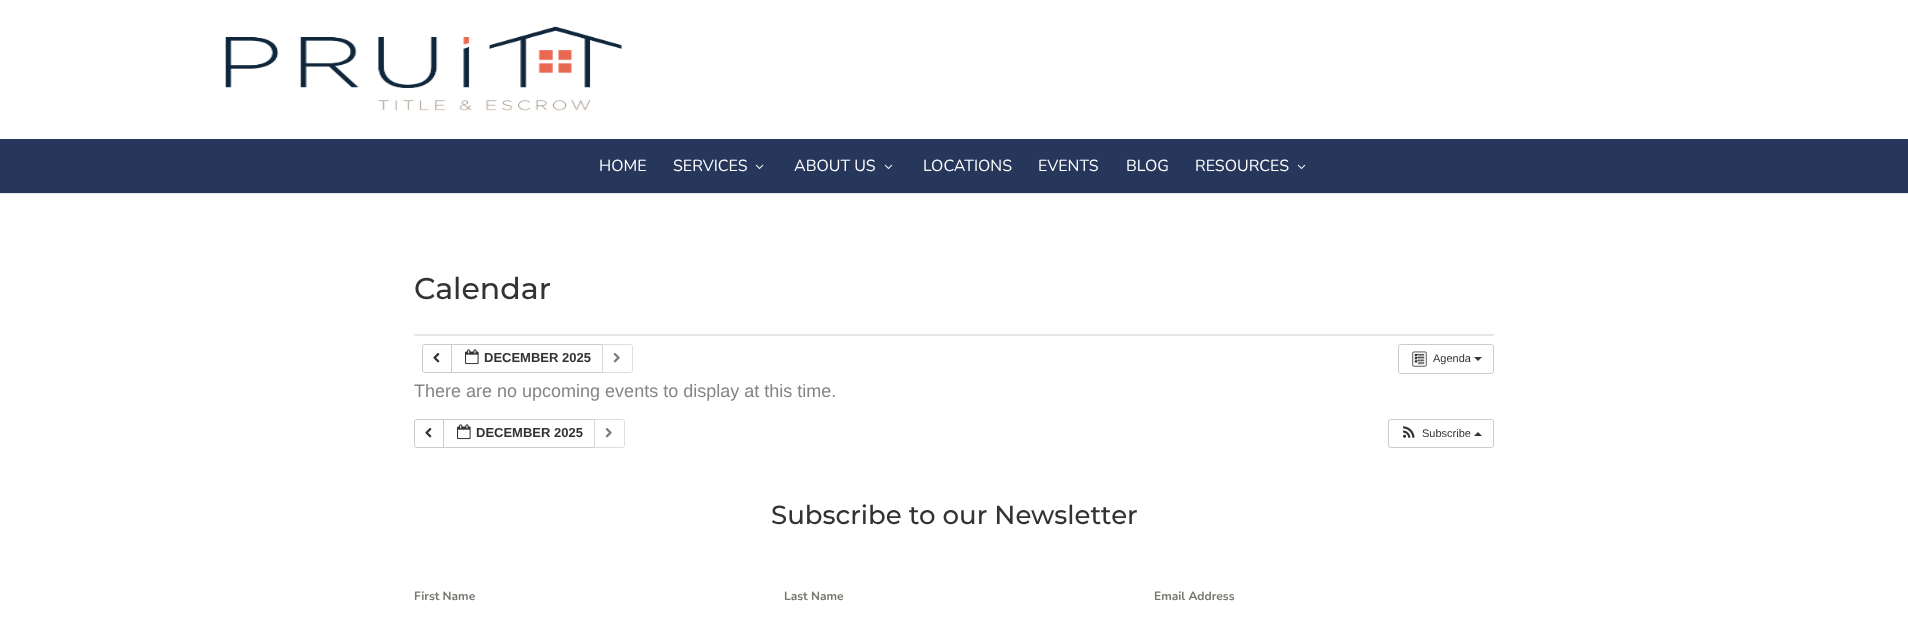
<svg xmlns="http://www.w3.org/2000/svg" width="1908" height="644">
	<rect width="100%" height="100%" fill="#FFFFFF" />
	<rect x="0" y="193" width="1908" height="1" fill="#E6E6E6" />
	<image x="225" y="26" width="397" height="85" href="assets/img1.png" />
	<rect x="0" y="139" width="1908" height="54" fill="#27375B" />
	<g font-family="Nunito" font-size="16" fill="#FFFFFF">
		<text x="599" y="171">HOME</text>
		<text x="673" y="171">SERVICES</text>
	</g>
	<image x="755" y="164" width="9" height="5" href="assets/img2.png" />
	<text x="794" y="171" font-family="Nunito" font-size="16" fill="#FFFFFF">ABOUT US</text>
	<image x="884" y="164" width="9" height="5" href="assets/img2.png" />
	<g font-family="Nunito" font-size="16" fill="#FFFFFF">
		<text x="923" y="171">LOCATIONS</text>
		<text x="1038" y="171">EVENTS</text>
		<text x="1126" y="171">BLOG</text>
		<text x="1195" y="171">RESOURCES</text>
	</g>
	<image x="1297" y="164" width="9" height="5" href="assets/img2.png" />
	<text x="414" y="299" font-family="Montserrat" font-size="30" font-weight="100" fill="#333333">Calendar</text>
	<rect x="414" y="334" width="1080" height="2" rx="1" fill="#E6E6E6" />
	<path d="M425 344.5H451.5V372.5H425C423.5 372.5 422.5 371.5 422.5 370V347C422.5 345.5 423.5 344.5 425 344.5Z" fill="none" stroke="#CCCCCC" />
	<image x="433" y="353" width="7" height="10" href="assets/img3.png" />
	<rect x="451.5" y="344.5" width="151" height="28" fill="none" stroke="#CCCCCC" />
	<image x="465" y="349" width="14" height="16" href="assets/img4.png" />
	<text x="484" y="362" font-family="Liberation Sans" font-size="13" font-weight="700" fill="#333333">DECEMBER 2025</text>
	<path d="M602 344H630C631.5 344 633 345.5 633 347V370C633 371.5 631.5 373 630 373H602Z" fill="#FFFFFF" fill-opacity="0.65" />
	<path d="M602.5 344.5H630C631.5 344.5 632.5 345.5 632.5 347V370C632.5 371.5 631.5 372.5 630 372.5H602.5Z" fill="none" stroke="#CCCCCC" stroke-opacity="0.65" />
	<image x="613" y="353" width="7" height="10" href="assets/img5.png" />
	<rect x="1398.5" y="344.5" width="95" height="29" rx="2.5" fill="none" stroke="#CCCCCC" />
	<image x="1412" y="351" width="15" height="16" href="assets/img6.png" />
	<text x="1433" y="362" font-family="Liberation Sans" font-size="11" fill="#333333">Agenda</text>
	<path d="M1474 357H1482L1478 361Z" fill="#333333" />
	<text x="414" y="397" font-family="Liberation Sans" font-size="18" fill="#858585">There are no upcoming events to display at this time.</text>
	<path d="M417 419.5H443.5V447.5H417C415.5 447.5 414.5 446.5 414.5 445V422C414.5 420.5 415.5 419.5 417 419.5Z" fill="none" stroke="#CCCCCC" />
	<image x="425" y="428" width="7" height="10" href="assets/img3.png" />
	<rect x="443.5" y="419.5" width="151" height="28" fill="none" stroke="#CCCCCC" />
	<image x="457" y="424" width="14" height="16" href="assets/img4.png" />
	<text x="476" y="437" font-family="Liberation Sans" font-size="13" font-weight="700" fill="#333333">DECEMBER 2025</text>
	<path d="M594 419H622C623.5 419 625 420.5 625 422V445C625 446.5 623.5 448 622 448H594Z" fill="#FFFFFF" fill-opacity="0.65" />
	<path d="M594.5 419.5H622C623.5 419.5 624.5 420.5 624.5 422V445C624.5 446.5 623.5 447.5 622 447.5H594.5Z" fill="none" stroke="#CCCCCC" stroke-opacity="0.65" />
	<image x="605" y="428" width="7" height="10" href="assets/img5.png" />
	<rect x="1388.5" y="419.5" width="105" height="28" rx="2.5" fill="none" stroke="#CCCCCC" />
	<image x="1403" y="426" width="12" height="12" href="assets/img7.png" />
	<text x="1422" y="437" font-family="Liberation Sans" font-size="11" fill="#333333">Subscribe</text>
	<path d="M1482 436H1474L1478 432Z" fill="#333333" />
	<text x="771" y="524" font-family="Montserrat" font-size="26" font-weight="100" fill="#333333">Subscribe to our Newsletter</text>
	<g font-family="Nunito" font-size="12" font-weight="700" fill="#777771">
		<text x="414" y="600">First Name</text>
		<text x="784" y="600">Last Name</text>
		<text x="1154" y="600">Email Address</text>
	</g>
</svg>
